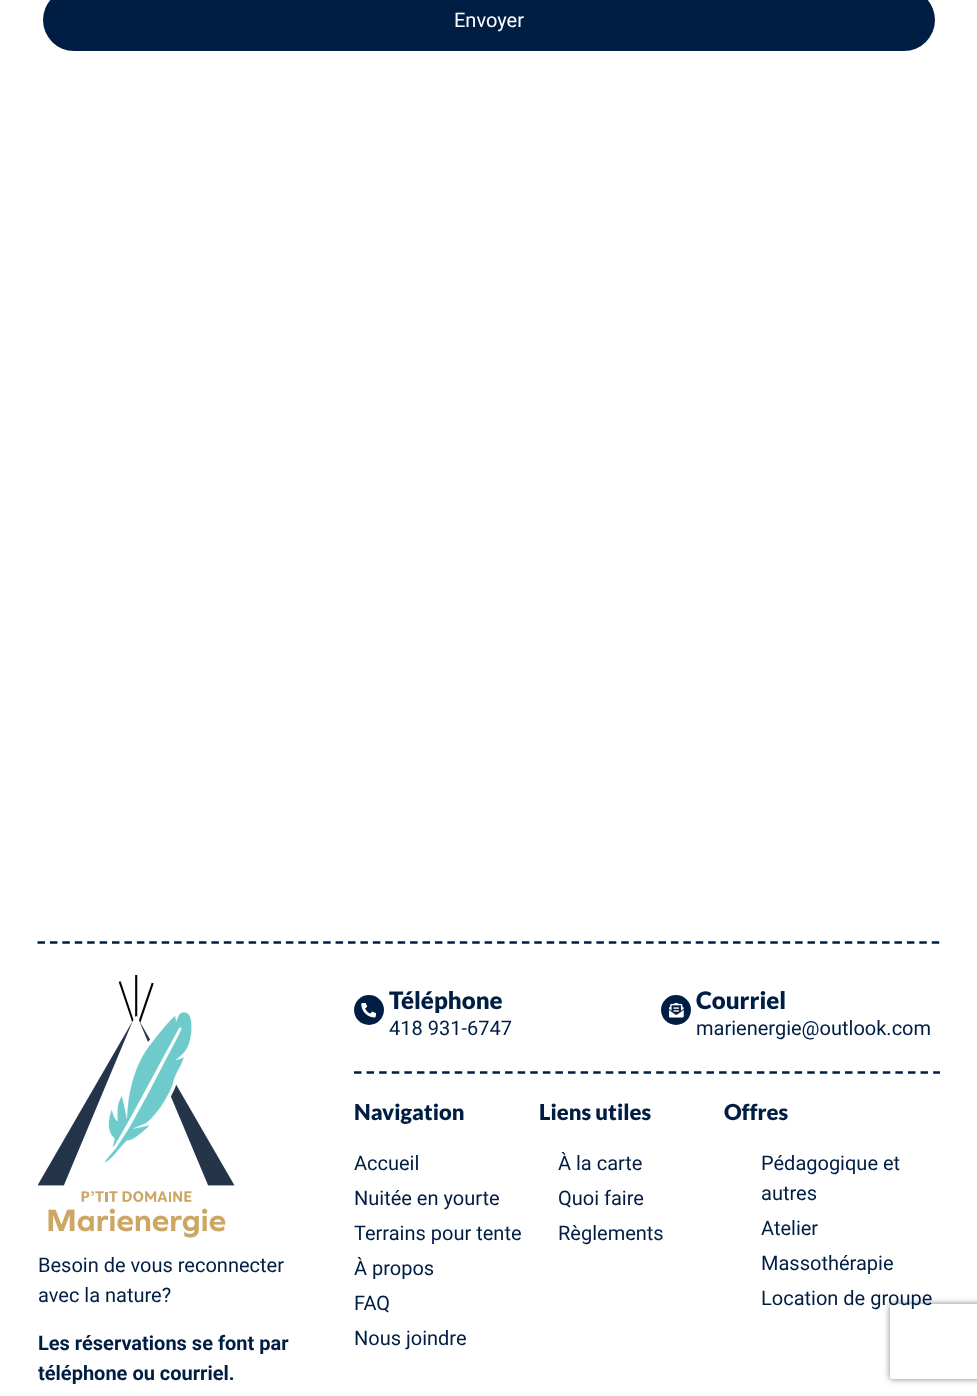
<svg xmlns="http://www.w3.org/2000/svg" width="977" height="1396">
	<defs>
		<clipPath id="clip1"><path d="M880 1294H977V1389H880ZM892.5 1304H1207.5C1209 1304 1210 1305 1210 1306.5V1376.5C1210 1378 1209 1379 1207.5 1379H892.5C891 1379 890 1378 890 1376.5V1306.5C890 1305 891 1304 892.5 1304Z" clip-rule="evenodd" /></clipPath>
	</defs>
	<rect width="100%" height="100%" fill="#FFFFFF" />
	<rect x="43" y="-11" width="892" height="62" rx="31" fill="#001E44" />
	<text x="454" y="27" font-family="Roboto" font-size="20" fill="#FFFFFF">Envoyer</text>
	<g clip-path="url(#clip1)">
		<rect x="890" y="1304" width="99" height="75" rx="2.5" fill="#808080" filter="blur(3px)" />
	</g>
	<path d="M37.5 942.5H940" fill="none" stroke="#001E44" stroke-width="2.5" stroke-dasharray="7.5 4.92" />
	<image x="38" y="975" width="197" height="263" href="assets/img1.png" />
	<g font-family="Roboto" font-size="20" fill="#001E44">
		<text x="38" y="1272">Besoin de vous reconnecter</text>
		<text x="38" y="1302">avec la nature?</text>
	</g>
	<g font-family="Roboto" font-size="20" font-weight="700" fill="#001E44">
		<text x="38" y="1350">Les réservations se font par</text>
		<text x="38" y="1380">téléphone ou courriel.</text>
	</g>
	<circle cx="369" cy="1010" r="15" fill="#001E44" />
	<image x="361" y="1003" width="15" height="15" href="assets/img2.png" />
	<text x="389" y="1009" font-family="Lato" font-size="24" font-weight="900" fill="#001E44">Téléphone</text>
	<text x="389" y="1035" font-family="Roboto" font-size="20" fill="#001E44">418 931-6747</text>
	<circle cx="676" cy="1010" r="15" fill="#001E44" />
	<image x="669" y="1003" width="15" height="15" href="assets/img3.png" />
	<text x="696" y="1009" font-family="Lato" font-size="24" font-weight="900" fill="#001E44">Courriel</text>
	<text x="696" y="1035" font-family="Roboto" font-size="20" fill="#001E44">marienergie@outlook.com</text>
	<path d="M354 1072.5H940" fill="none" stroke="#001E44" stroke-width="2.5" stroke-dasharray="7.5 5.09" />
	<text x="354" y="1120" font-family="Lato" font-size="22" font-weight="900" fill="#001E44">Navigation</text>
	<g font-family="Roboto" font-size="20" fill="#001E44">
		<text x="354" y="1170">Accueil</text>
		<text x="354" y="1205">Nuitée en yourte</text>
		<text x="354" y="1240">Terrains pour tente</text>
		<text x="354" y="1275">À propos</text>
		<text x="354" y="1310">FAQ</text>
		<text x="354" y="1345">Nous joindre</text>
	</g>
	<text x="539" y="1120" font-family="Lato" font-size="22" font-weight="900" fill="#001E44">Liens utiles</text>
	<g font-family="Roboto" font-size="20" fill="#001E44">
		<text x="558" y="1170">À la carte</text>
		<text x="558" y="1205">Quoi faire</text>
		<text x="558" y="1240">Règlements</text>
	</g>
	<text x="724" y="1120" font-family="Lato" font-size="22" font-weight="900" fill="#001E44">Offres</text>
	<g font-family="Roboto" font-size="20" fill="#001E44">
		<text x="761" y="1170">Pédagogique et</text>
		<text x="761" y="1200">autres</text>
		<text x="761" y="1235">Atelier</text>
		<text x="761" y="1270">Massothérapie</text>
		<text x="761" y="1305">Location de groupe</text>
	</g>
</svg>
